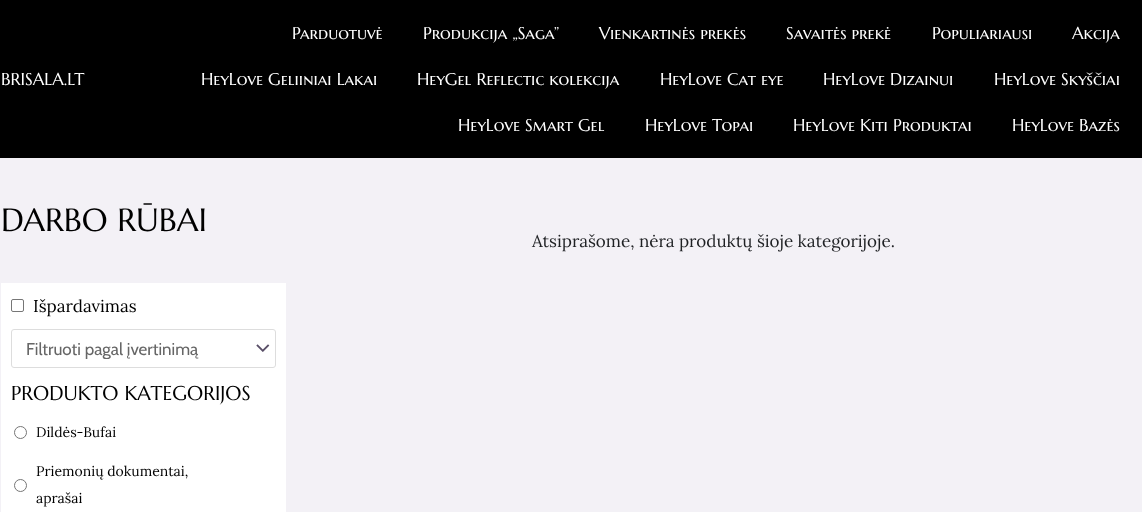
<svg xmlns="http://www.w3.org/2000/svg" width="1142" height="512">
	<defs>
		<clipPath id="clip1"><rect x="26" y="339" width="215" height="20" /></clipPath>
	</defs>
	<rect width="100%" height="100%" fill="#F3F1F6" />
	<rect x="0" y="0" width="1142" height="158" fill="#000000" />
	<g font-family="Marcellus SC" font-size="17" fill="#FFFFFF">
		<text x="1" y="85">BRISALA.LT</text>
		<text x="292" y="39">Parduotuvė</text>
		<text x="423" y="39">Produkcija „Saga”</text>
		<text x="599" y="39">Vienkartinės prekės</text>
		<text x="786" y="39">Savaitės prekė</text>
		<text x="932" y="39">Populiariausi</text>
		<text x="1072" y="39">Akcija</text>
		<text x="201" y="85">HeyLove Geliiniai Lakai</text>
		<text x="417" y="85">HeyGel Reflectic kolekcija</text>
		<text x="660" y="85">HeyLove Cat eye</text>
		<text x="823" y="85">HeyLove Dizainui</text>
		<text x="994" y="85">HeyLove Skyščiai</text>
		<text x="458" y="131">HeyLove Smart Gel</text>
		<text x="645" y="131">HeyLove Topai</text>
		<text x="793" y="131">HeyLove Kiti Produktai</text>
		<text x="1012" y="131">HeyLove Bazės</text>
	</g>
	<text x="1" y="231" font-family="Marcellus SC" font-size="32" fill="#000000">DARBO RŪBAI</text>
	<rect x="1" y="283" width="285" height="229" fill="#FFFFFF" />
	<rect x="11.5" y="299.5" width="12" height="12" rx="1.5" fill="none" stroke="#767676" />
	<text x="33" y="312" font-family="Lora" font-size="17" fill="#000000">Išpardavimas</text>
	<image x="256" y="344" width="14" height="8" href="assets/img1.png" />
	<rect x="11.5" y="329.5" width="264" height="38" rx="2.5" fill="none" stroke="#DDDDDD" />
	<g clip-path="url(#clip1)">
		<text x="26" y="355" font-family="Cabin" font-size="17" fill="#666666">Filtruoti pagal įvertinimą</text>
	</g>
	<text x="11" y="400" font-family="Marcellus SC" font-size="20" fill="#000000">PRODUKTO KATEGORIJOS</text>
	<circle cx="20.5" cy="432.5" r="6" fill="none" stroke="#767676" />
	<text x="36" y="437" font-family="Lora" font-size="14" fill="#000000">Dildės-Bufai</text>
	<circle cx="20.5" cy="485.5" r="6" fill="none" stroke="#767676" />
	<g font-family="Lora" font-size="14" fill="#000000">
		<text x="36" y="476">Priemonių dokumentai,</text>
		<text x="36" y="503">aprašai</text>
	</g>
	<text x="532" y="247" font-family="Lora" font-size="17" fill="#1F2124">Atsiprašome, nėra produktų šioje kategorijoje.</text>
</svg>
